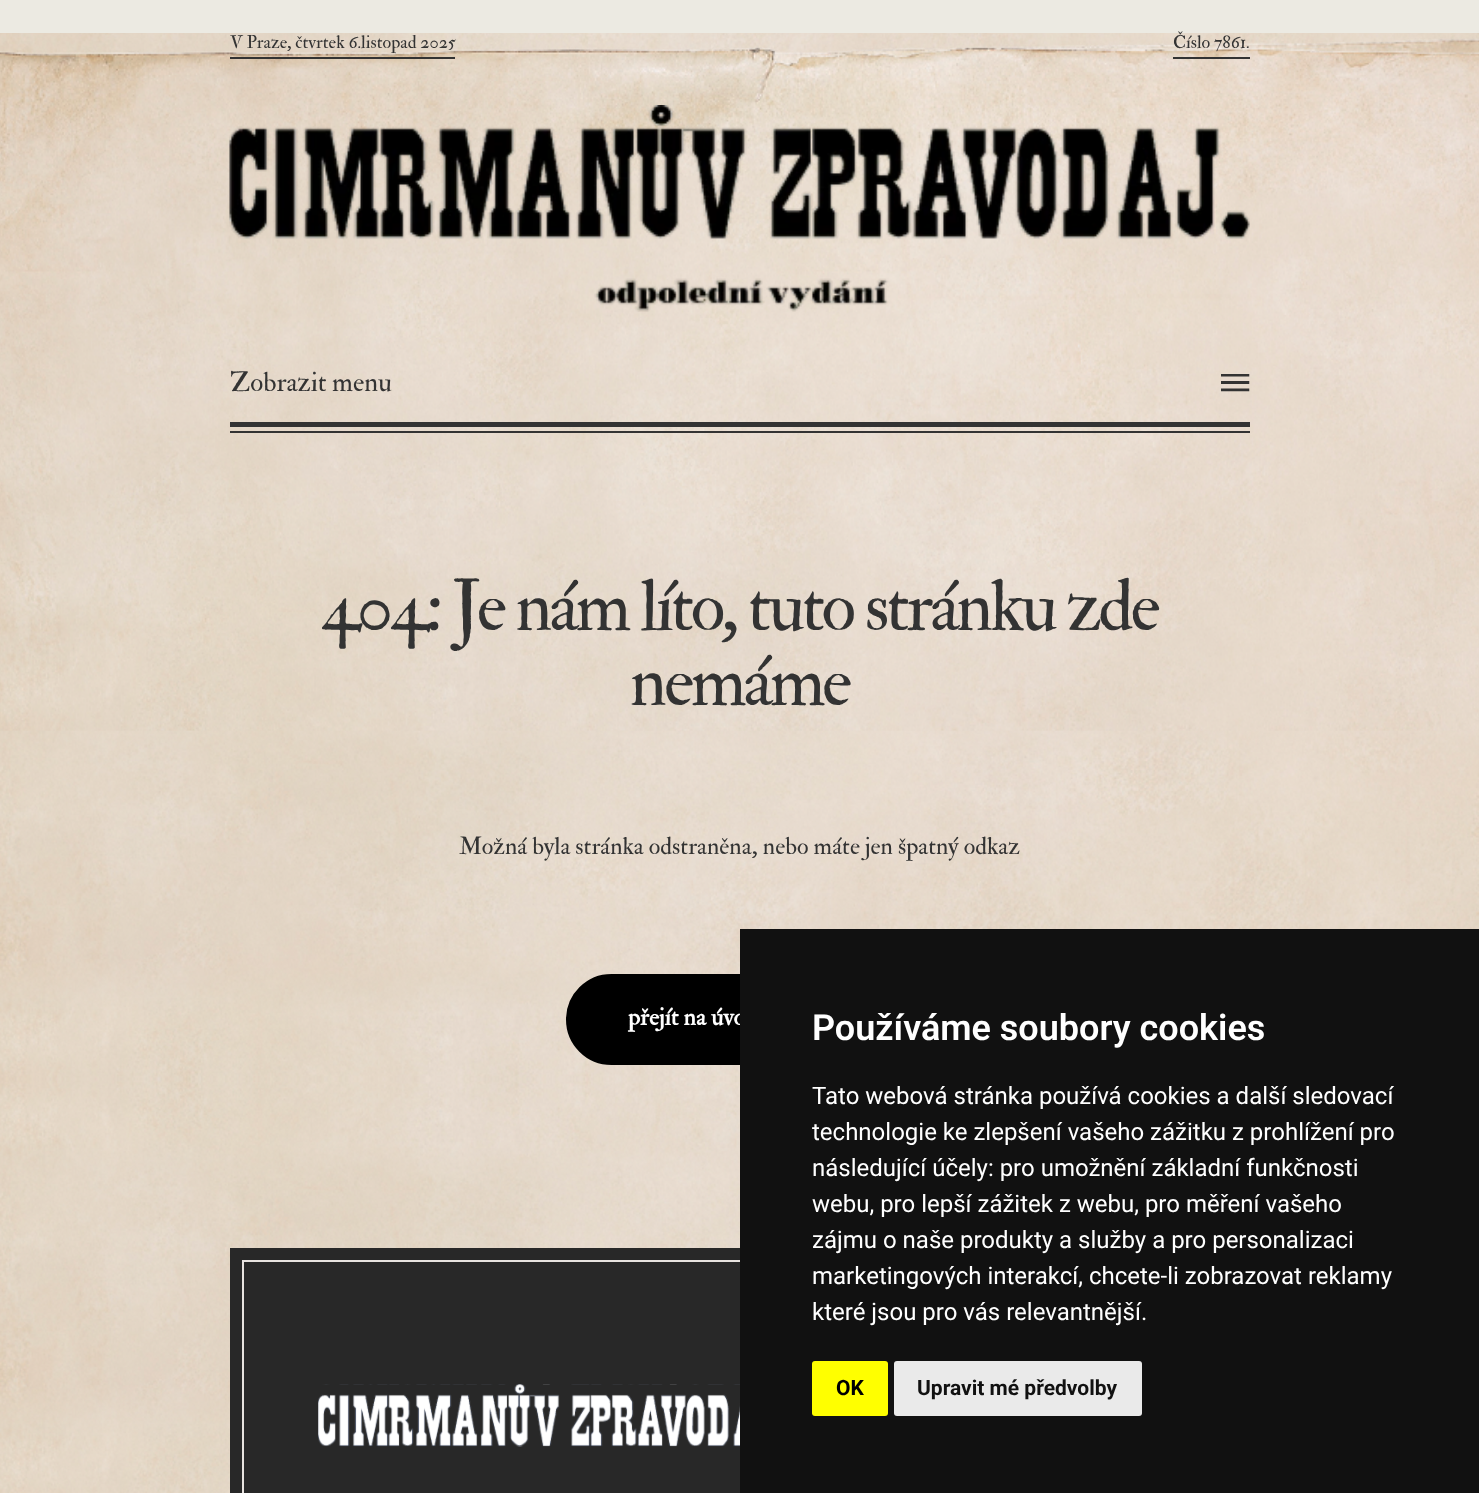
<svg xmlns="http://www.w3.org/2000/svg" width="1479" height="1493">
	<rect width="100%" height="100%" fill="#ECEAE2" />
	<image x="0" y="33" width="1479" height="1460" href="assets/img3.png" />
	<text x="230" y="48" font-family="IM FELL Double Pica" font-size="18" fill="#333333">V Praze, čtvrtek 6.listopad 2025</text>
	<rect x="230" y="57" width="225" height="2" fill="#333333" />
	<text x="1173" y="48" font-family="IM FELL Double Pica" font-size="18" fill="#333333">Číslo 7861.</text>
	<rect x="1173" y="57" width="77" height="2" fill="#333333" />
	<image x="229" y="105" width="1021" height="207" href="assets/img1.png" />
	<rect x="230" y="422" width="1020" height="5" fill="#333333" />
	<text x="230" y="391" font-family="IM FELL Double Pica" font-size="27" fill="#333333">Zobrazit menu</text>
	<image x="1221" y="374" width="29" height="18" href="assets/img2.png" />
	<rect x="230" y="431" width="1020" height="2" fill="#333333" />
	<g font-family="IM FELL Double Pica" font-size="72" letter-spacing="-3.25" fill="#333333">
		<text x="321" y="630">404: Je nám líto, tuto stránku zde</text>
		<text x="630" y="705">nemáme</text>
	</g>
	<text x="459" y="854" font-family="IM FELL Double Pica" font-size="24" fill="#333333">Možná byla stránka odstraněna, nebo máte jen špatný odkaz</text>
	<rect x="567" y="975" width="346" height="89" rx="44.5" fill="#000000" stroke="#000000" stroke-width="2" />
	<text x="628" y="1025" font-family="IM FELL Double Pica" font-size="24" font-weight="700" fill="#FFFFFF">přejít na úvo</text>
	<rect x="230" y="1248" width="510" height="245" fill="#282828" />
	<rect x="243" y="1261" width="994" height="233" fill="none" stroke="#E8E3E0" stroke-width="2" />
	<image x="318" y="1384" width="422" height="63" href="assets/img4.png" />
	<rect x="740" y="929" width="739" height="564" fill="#111111" />
	<text x="812" y="1040" font-family="Roboto" font-size="36" font-weight="600" fill="#FFFFFF">Používáme soubory cookies</text>
	<g font-family="Roboto" font-size="24" fill="#FFFFFF">
		<text x="812" y="1104">Tato webová stránka používá cookies a další sledovací</text>
		<text x="812" y="1140">technologie ke zlepšení vašeho zážitku z prohlížení pro</text>
		<text x="812" y="1176">následující účely: pro umožnění základní funkčnosti</text>
		<text x="812" y="1212">webu, pro lepší zážitek z webu, pro měření vašeho</text>
		<text x="812" y="1248">zájmu o naše produkty a služby a pro personalizaci</text>
		<text x="812" y="1284">marketingových interakcí, chcete-li zobrazovat reklamy</text>
		<text x="812" y="1320">které jsou pro vás relevantnější.</text>
	</g>
	<rect x="812" y="1361" width="76" height="55" rx="3" fill="#FFFF00" />
	<text x="836" y="1395" font-family="Roboto" font-size="21" font-weight="700" fill="#000000">OK</text>
	<rect x="894" y="1361" width="248" height="55" rx="3" fill="#EAEAEA" />
	<text x="917" y="1395" font-family="Roboto" font-size="21" font-weight="700" fill="#111111">Upravit mé předvolby</text>
</svg>
